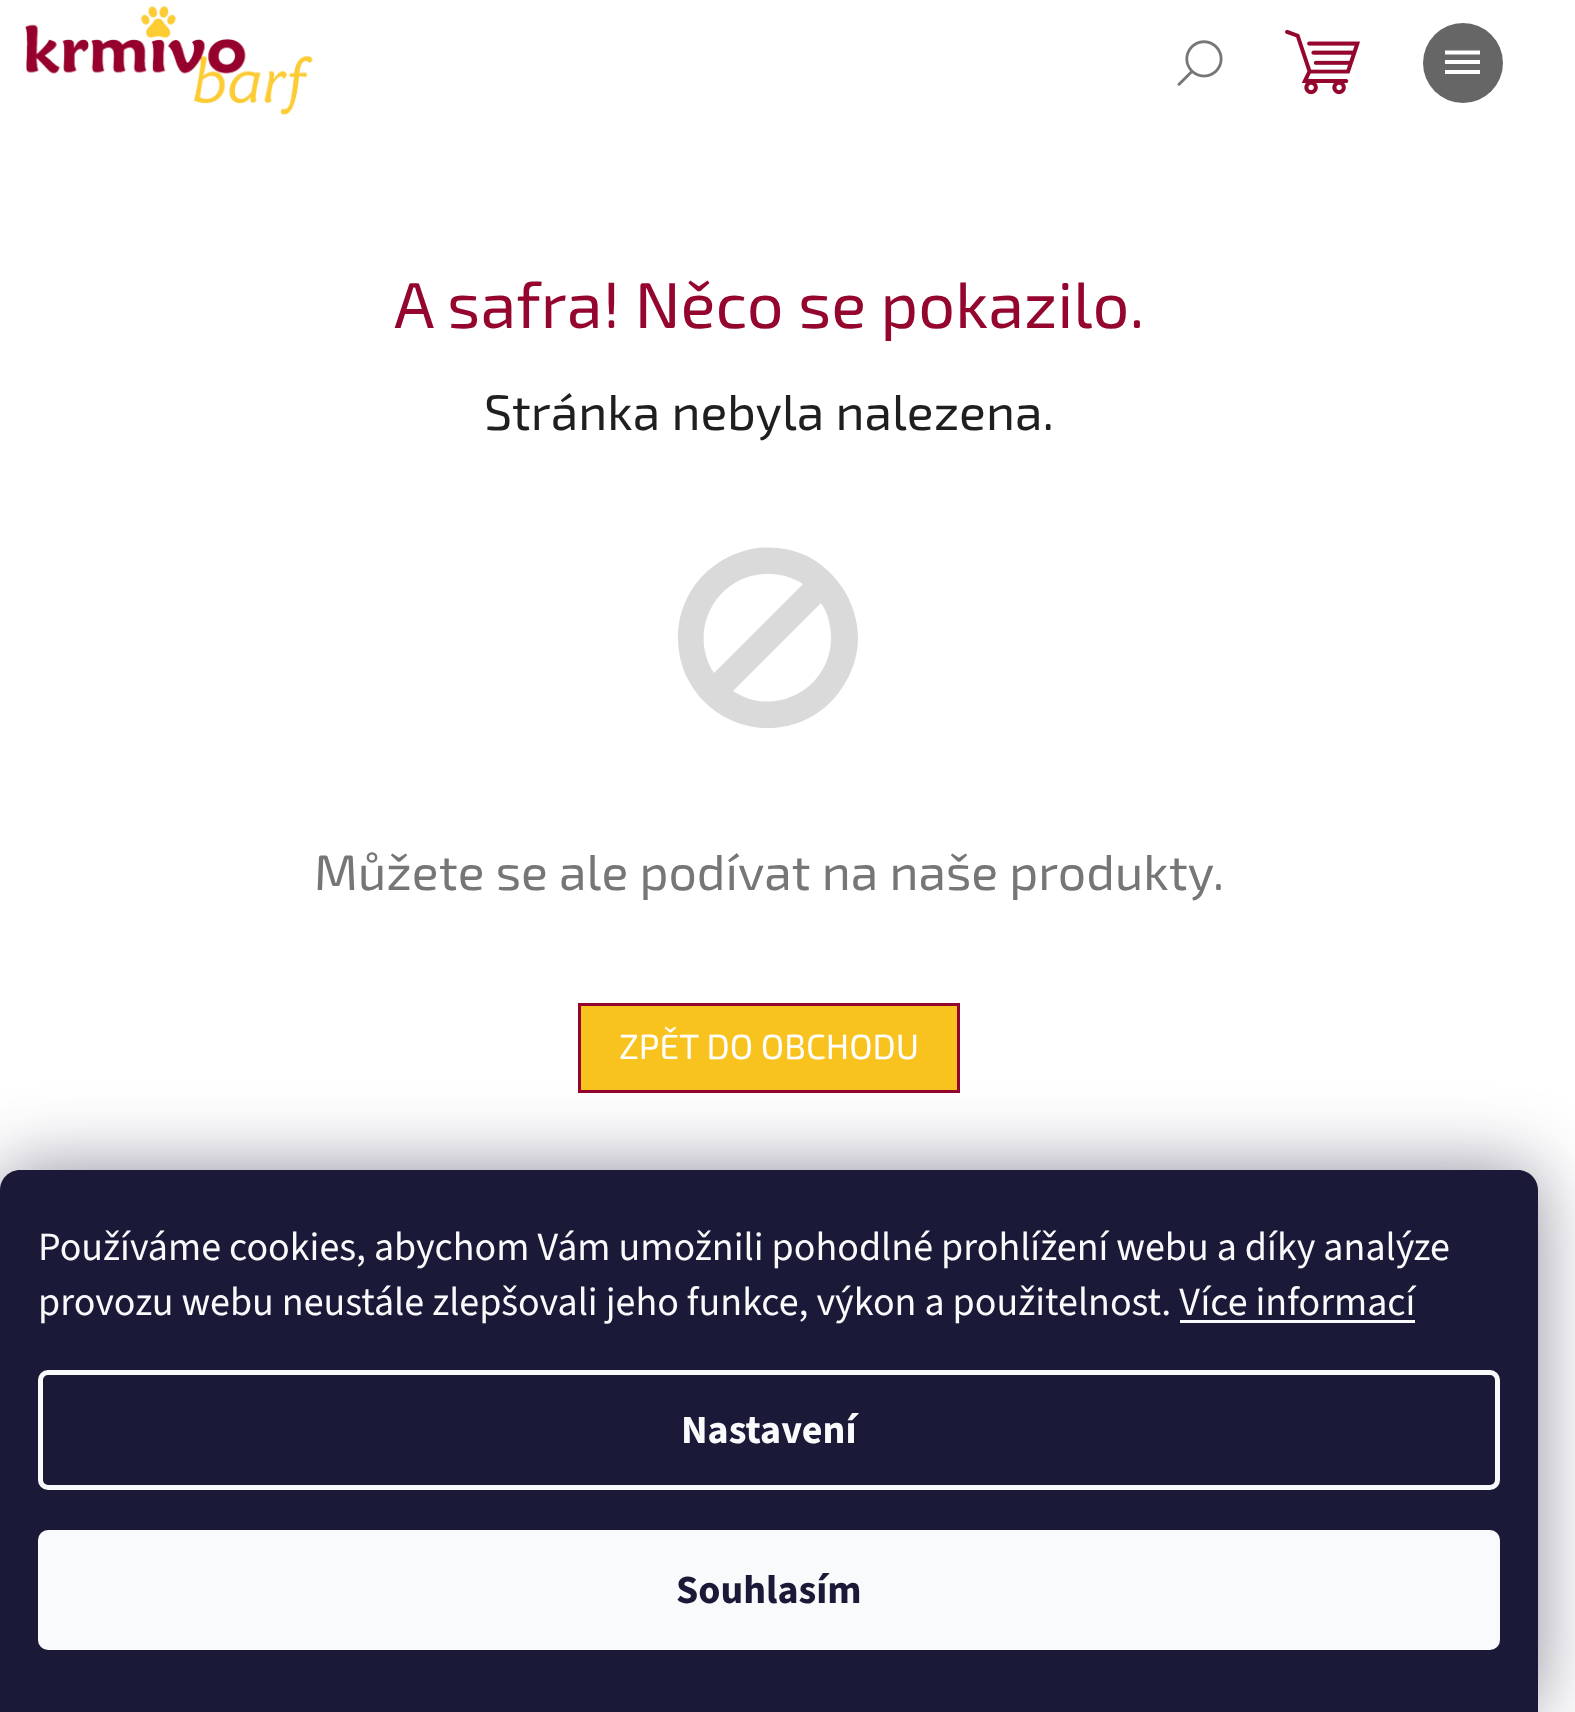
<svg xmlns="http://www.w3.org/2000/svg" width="1575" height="1712">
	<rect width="100%" height="100%" fill="#FFFFFF" />
	<image x="25" y="5" width="288" height="110" href="assets/img1.png" />
	<image x="1285" y="29" width="75" height="66" href="assets/img2.png" />
	<image x="1177" y="40" width="46" height="46" href="assets/img3.png" />
	<circle cx="1463" cy="63" r="40" fill="#666666" />
	<path d="M1445 74H1480V70H1445ZM1445 64H1480V60H1445ZM1445 50.5V54.5H1480V50.5Z" fill="#FFFFFF" />
	<text x="394" y="328" font-family="'Exo 2'" font-size="65" fill="#94062E">A safra! Něco se pokazilo.</text>
	<text x="484" y="430" font-family="'Exo 2'" font-size="50" fill="#1F1F1F">Stránka nebyla nalezena.</text>
	<path d="M831 638C831 626 828 613 821 603L733 691C775 719 831 688 831 638ZM714 673L803 584C793 578 782 574 770 574C718 572 686 630 714 673ZM858 638C858 656 852 673 842 688C833 702 821 712 807 719C747 748 678 704 678 638C678 572 747 528 807 556C821 563 833 574 842 587C852 602 858 620 858 638Z" fill="#DADADA" />
	<text x="314" y="890" font-family="'Exo 2'" font-size="50" fill="#767676">Můžete se ale podívat na naše produkty.</text>
	<rect x="579.5" y="1004.5" width="379" height="87" fill="#F9C31F" stroke="#94062E" stroke-width="3" />
	<text x="619" y="1059" font-family="'Exo 2'" font-size="35" fill="#FFFFFF">ZPĚT DO OBCHODU</text>
	<rect x="0" y="1170" width="1538" height="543" rx="20" fill="#1B1939" fill-opacity="0.5" filter="blur(37.5px)" />
	<path d="M20 1170H1518C1529 1170 1538 1179 1538 1190V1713H0V1190C0 1179 9 1170 20 1170Z" fill="#1A1937" />
	<g font-family="'Source Sans 3'" font-size="40" fill="#F8FAFB">
		<text x="38" y="1260">Používáme cookies, abychom Vám umožnili pohodlné prohlížení webu a díky analýze</text>
		<text x="38" y="1315">provozu webu neustále zlepšovali jeho funkce, výkon a použitelnost. Více informací</text>
	</g>
	<rect x="1180" y="1320" width="235" height="3" fill="#F8FAFB" />
	<rect x="40.5" y="1372.5" width="1457" height="115" rx="7.5" fill="none" stroke="#F8FAFB" stroke-width="5" />
	<text x="681" y="1443" font-family="'Source Sans 3'" font-size="40" font-weight="700" fill="#F8FAFB">Nastavení</text>
	<rect x="38" y="1530" width="1462" height="120" rx="10" fill="#F8FAFB" />
	<text x="676" y="1603" font-family="'Source Sans 3'" font-size="40" font-weight="700" fill="#1A1937">Souhlasím</text>
</svg>
